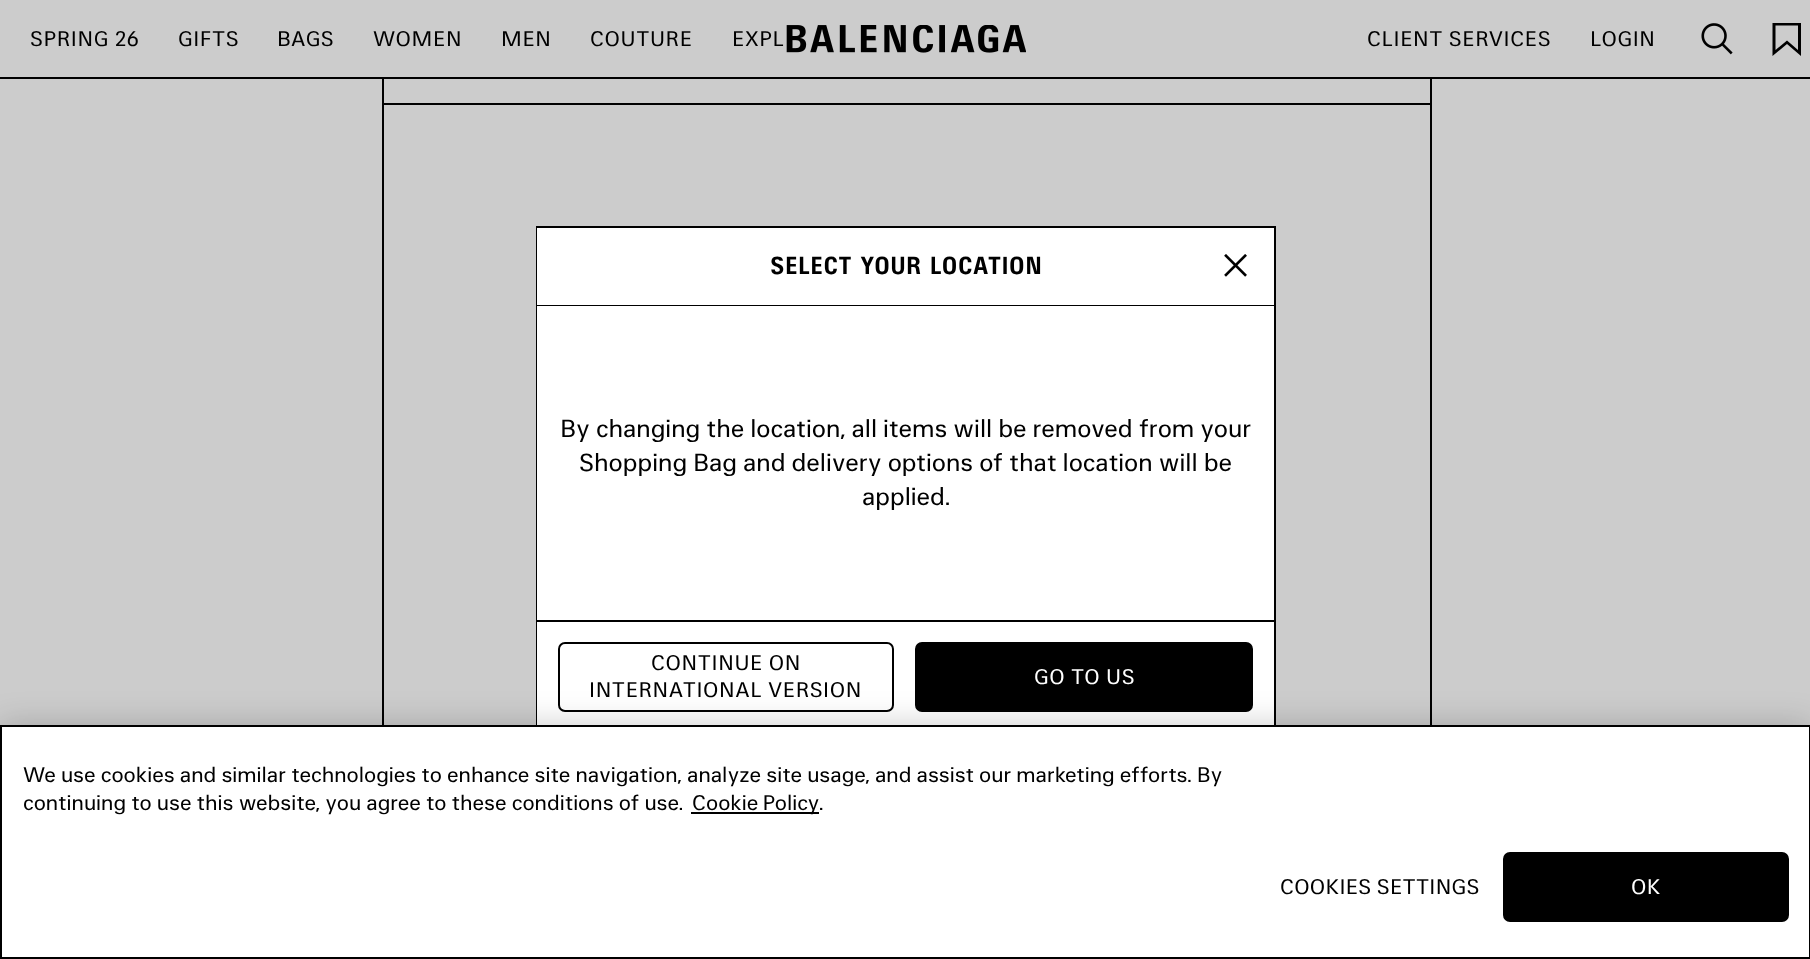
<svg xmlns="http://www.w3.org/2000/svg" width="1810" height="959">
	<rect width="100%" height="100%" fill="#CCCCCC" />
	<rect x="0" y="77" width="1810" height="2" fill="#000000" />
	<g font-family="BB" font-size="21" letter-spacing="0.6" fill="#000000">
		<text x="30" y="46">SPRING 26</text>
		<text x="178" y="46">GIFTS</text>
		<text x="277" y="46">BAGS</text>
		<text x="373" y="46">WOMEN</text>
		<text x="501" y="46">MEN</text>
		<text x="590" y="46">COUTURE</text>
		<text x="732" y="46">EXPL</text>
	</g>
	<image x="786" y="25" width="240" height="28" href="assets/img1.png" />
	<g font-family="BB" font-size="21" letter-spacing="0.6" fill="#000000">
		<text x="1367" y="46">CLIENT SERVICES</text>
		<text x="1590" y="46">LOGIN</text>
	</g>
	<image x="1701" y="23" width="32" height="32" href="assets/img2.png" />
	<path d="M1801 56L1787 44L1772.5 56V23H1801ZM1775.5 25.5V50L1787 40.5L1798 50V25.5Z" fill="#000000" />
	<rect x="1430" y="79" width="2" height="646" fill="#000000" />
	<rect x="382" y="79" width="2" height="646" fill="#000000" />
	<rect x="383" y="103" width="1047" height="2" fill="#000000" />
	<rect x="537" y="227" width="738" height="507" fill="none" stroke="#000000" stroke-width="2" />
	<rect x="537" y="228" width="737" height="77" fill="#FFFFFF" />
	<rect x="537" y="305" width="737" height="1" fill="#000000" />
	<text x="770" y="274" font-family="BB" font-size="24.5" font-weight="700" letter-spacing="0.75" fill="#000000">SELECT YOUR LOCATION</text>
	<image x="1224" y="254" width="23" height="23" href="assets/img3.png" />
	<rect x="537" y="306" width="737" height="314" fill="#FFFFFF" />
	<g font-family="BB" font-size="24.5" fill="#000000">
		<text x="560" y="437">By changing the location, all items will be removed from your</text>
		<text x="579" y="471">Shopping Bag and delivery options of that location will be</text>
		<text x="862" y="505">applied.</text>
	</g>
	<rect x="537" y="622" width="737" height="103" fill="#FFFFFF" />
	<rect x="537" y="620" width="737" height="2" fill="#000000" />
	<rect x="559" y="643" width="334" height="68" rx="6" fill="none" stroke="#000000" stroke-width="2" />
	<g font-family="BB" font-size="21" letter-spacing="0.6" fill="#000000">
		<text x="651" y="670">CONTINUE ON</text>
		<text x="589" y="697">INTERNATIONAL VERSION</text>
	</g>
	<rect x="916" y="643" width="336" height="68" rx="6" fill="#000000" stroke="#000000" stroke-width="2" />
	<text x="1034" y="684" font-family="BB" font-size="21" letter-spacing="0.6" fill="#FFFFFF">GO TO US</text>
	<rect x="0" y="725" width="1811" height="234" fill="#000000" fill-opacity="0.2" filter="blur(16px)" />
	<rect x="1" y="726" width="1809" height="232" fill="#FFFFFF" stroke="#000000" stroke-width="2" />
	<g font-family="BB" font-size="21" fill="#000000">
		<text x="23" y="782">We use cookies and similar technologies to enhance site navigation, analyze site usage, and assist our marketing efforts. By</text>
		<text x="23" y="810">continuing to use this website, you agree to these conditions of use.</text>
	</g>
	<rect x="691" y="812" width="128" height="2" fill="#000000" />
	<g font-family="BB" font-size="21" fill="#000000">
		<text x="692" y="810" word-spacing="-1">Cookie Policy</text>
		<text x="819" y="810">.</text>
	</g>
	<text x="1280" y="894" font-family="BB" font-size="21" letter-spacing="0.25" fill="#000000">COOKIES SETTINGS</text>
	<rect x="1504" y="853" width="284" height="68" rx="6" fill="#000000" stroke="#000000" stroke-width="2" />
	<text x="1631" y="894" font-family="BB" font-size="21" letter-spacing="0.25" fill="#FFFFFF">OK</text>
</svg>
